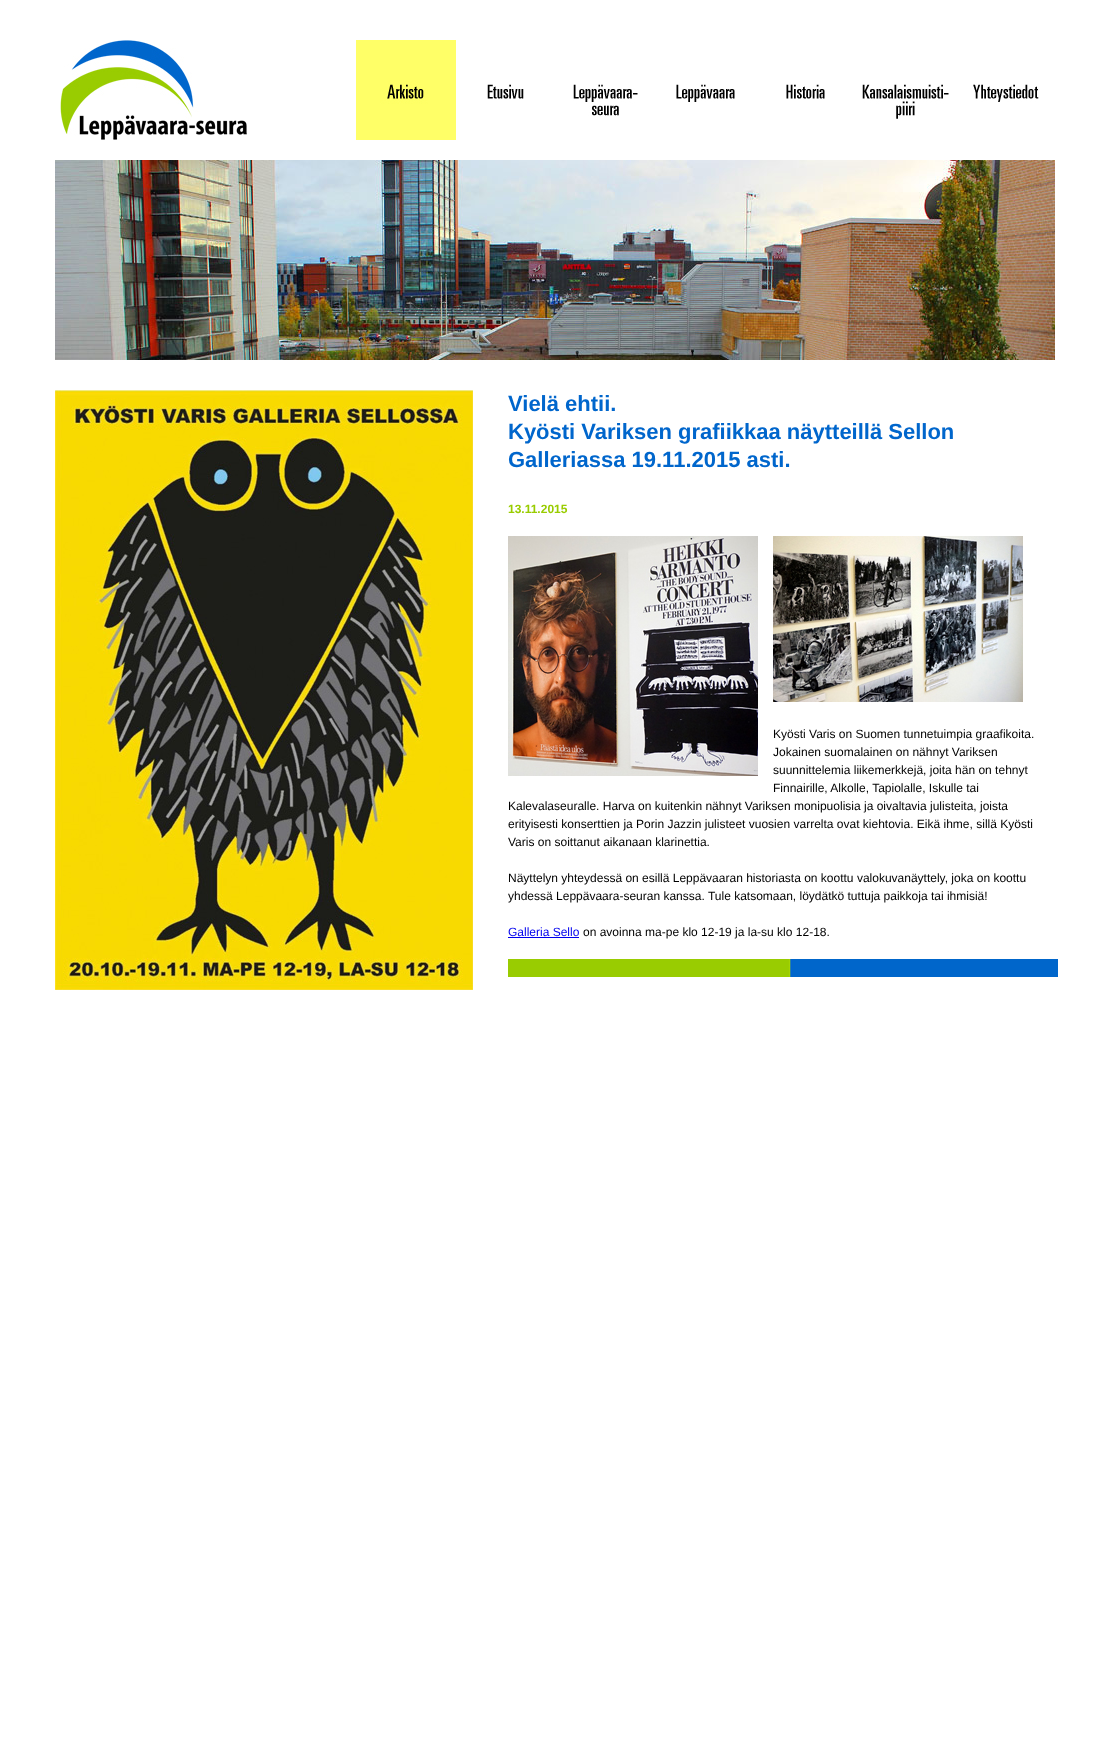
<svg xmlns="http://www.w3.org/2000/svg" width="1112" height="1754">
	<rect width="100%" height="100%" fill="#FFFFFF" />
	<image x="60" y="40" width="187" height="100" href="assets/img1.png" />
	<image x="356" y="40" width="100" height="100" href="assets/img2.png" />
	<image x="487" y="84" width="37" height="15" href="assets/img3.png" />
	<image x="573" y="84" width="65" height="32" href="assets/img4.png" />
	<image x="676" y="84" width="59" height="18" href="assets/img5.png" />
	<image x="786" y="84" width="39" height="15" href="assets/img6.png" />
	<image x="862" y="84" width="87" height="35" href="assets/img7.png" />
	<image x="973" y="84" width="66" height="18" href="assets/img8.png" />
	<image x="55" y="160" width="1000" height="200" href="assets/img9.png" />
	<image x="55" y="390" width="418" height="600" href="assets/img10.png" />
	<g font-family="Liberation Sans" font-size="22" font-weight="700" fill="#0066CC">
		<text x="508" y="411">Vielä ehtii.</text>
		<text x="508" y="439">Kyösti Variksen grafiikkaa näytteillä Sellon</text>
		<text x="508" y="467">Galleriassa 19.11.2015 asti.</text>
	</g>
	<text x="508" y="513" font-family="Liberation Sans" font-size="12" font-weight="700" fill="#99CC00">13.11.2015</text>
	<image x="508" y="536" width="250" height="240" href="assets/img11.png" />
	<image x="773" y="536" width="250" height="166" href="assets/img12.png" />
	<g font-family="Liberation Sans" font-size="12" fill="#000000">
		<text x="773" y="738">Kyösti Varis on Suomen tunnetuimpia graafikoita.</text>
		<text x="773" y="756">Jokainen suomalainen on nähnyt Variksen</text>
		<text x="773" y="774">suunnittelemia liikemerkkejä, joita hän on tehnyt</text>
		<text x="773" y="792">Finnairille, Alkolle, Tapiolalle, Iskulle tai</text>
		<text x="508" y="810">Kalevalaseuralle. Harva on kuitenkin nähnyt Variksen monipuolisia ja oivaltavia julisteita, joista</text>
		<text x="508" y="828">erityisesti konserttien ja Porin Jazzin julisteet vuosien varrelta ovat kiehtovia. Eikä ihme, sillä Kyösti</text>
		<text x="508" y="846">Varis on soittanut aikanaan klarinettia.</text>
		<text x="508" y="882">Näyttelyn yhteydessä on esillä Leppävaaran historiasta on koottu valokuvanäyttely, joka on koottu</text>
		<text x="508" y="900">yhdessä Leppävaara-seuran kanssa. Tule katsomaan, löydätkö tuttuja paikkoja tai ihmisiä!</text>
	</g>
	<text x="508" y="936" font-family="Liberation Sans" font-size="12" fill="#0000EE">Galleria Sello</text>
	<rect x="508" y="937" width="71" height="1" fill="#0000EE" />
	<text x="583" y="936" font-family="Liberation Sans" font-size="12" fill="#000000">on avoinna ma-pe klo 12-19 ja la-su klo 12-18.</text>
	<image x="508" y="959" width="550" height="18" href="assets/img13.png" />
</svg>
